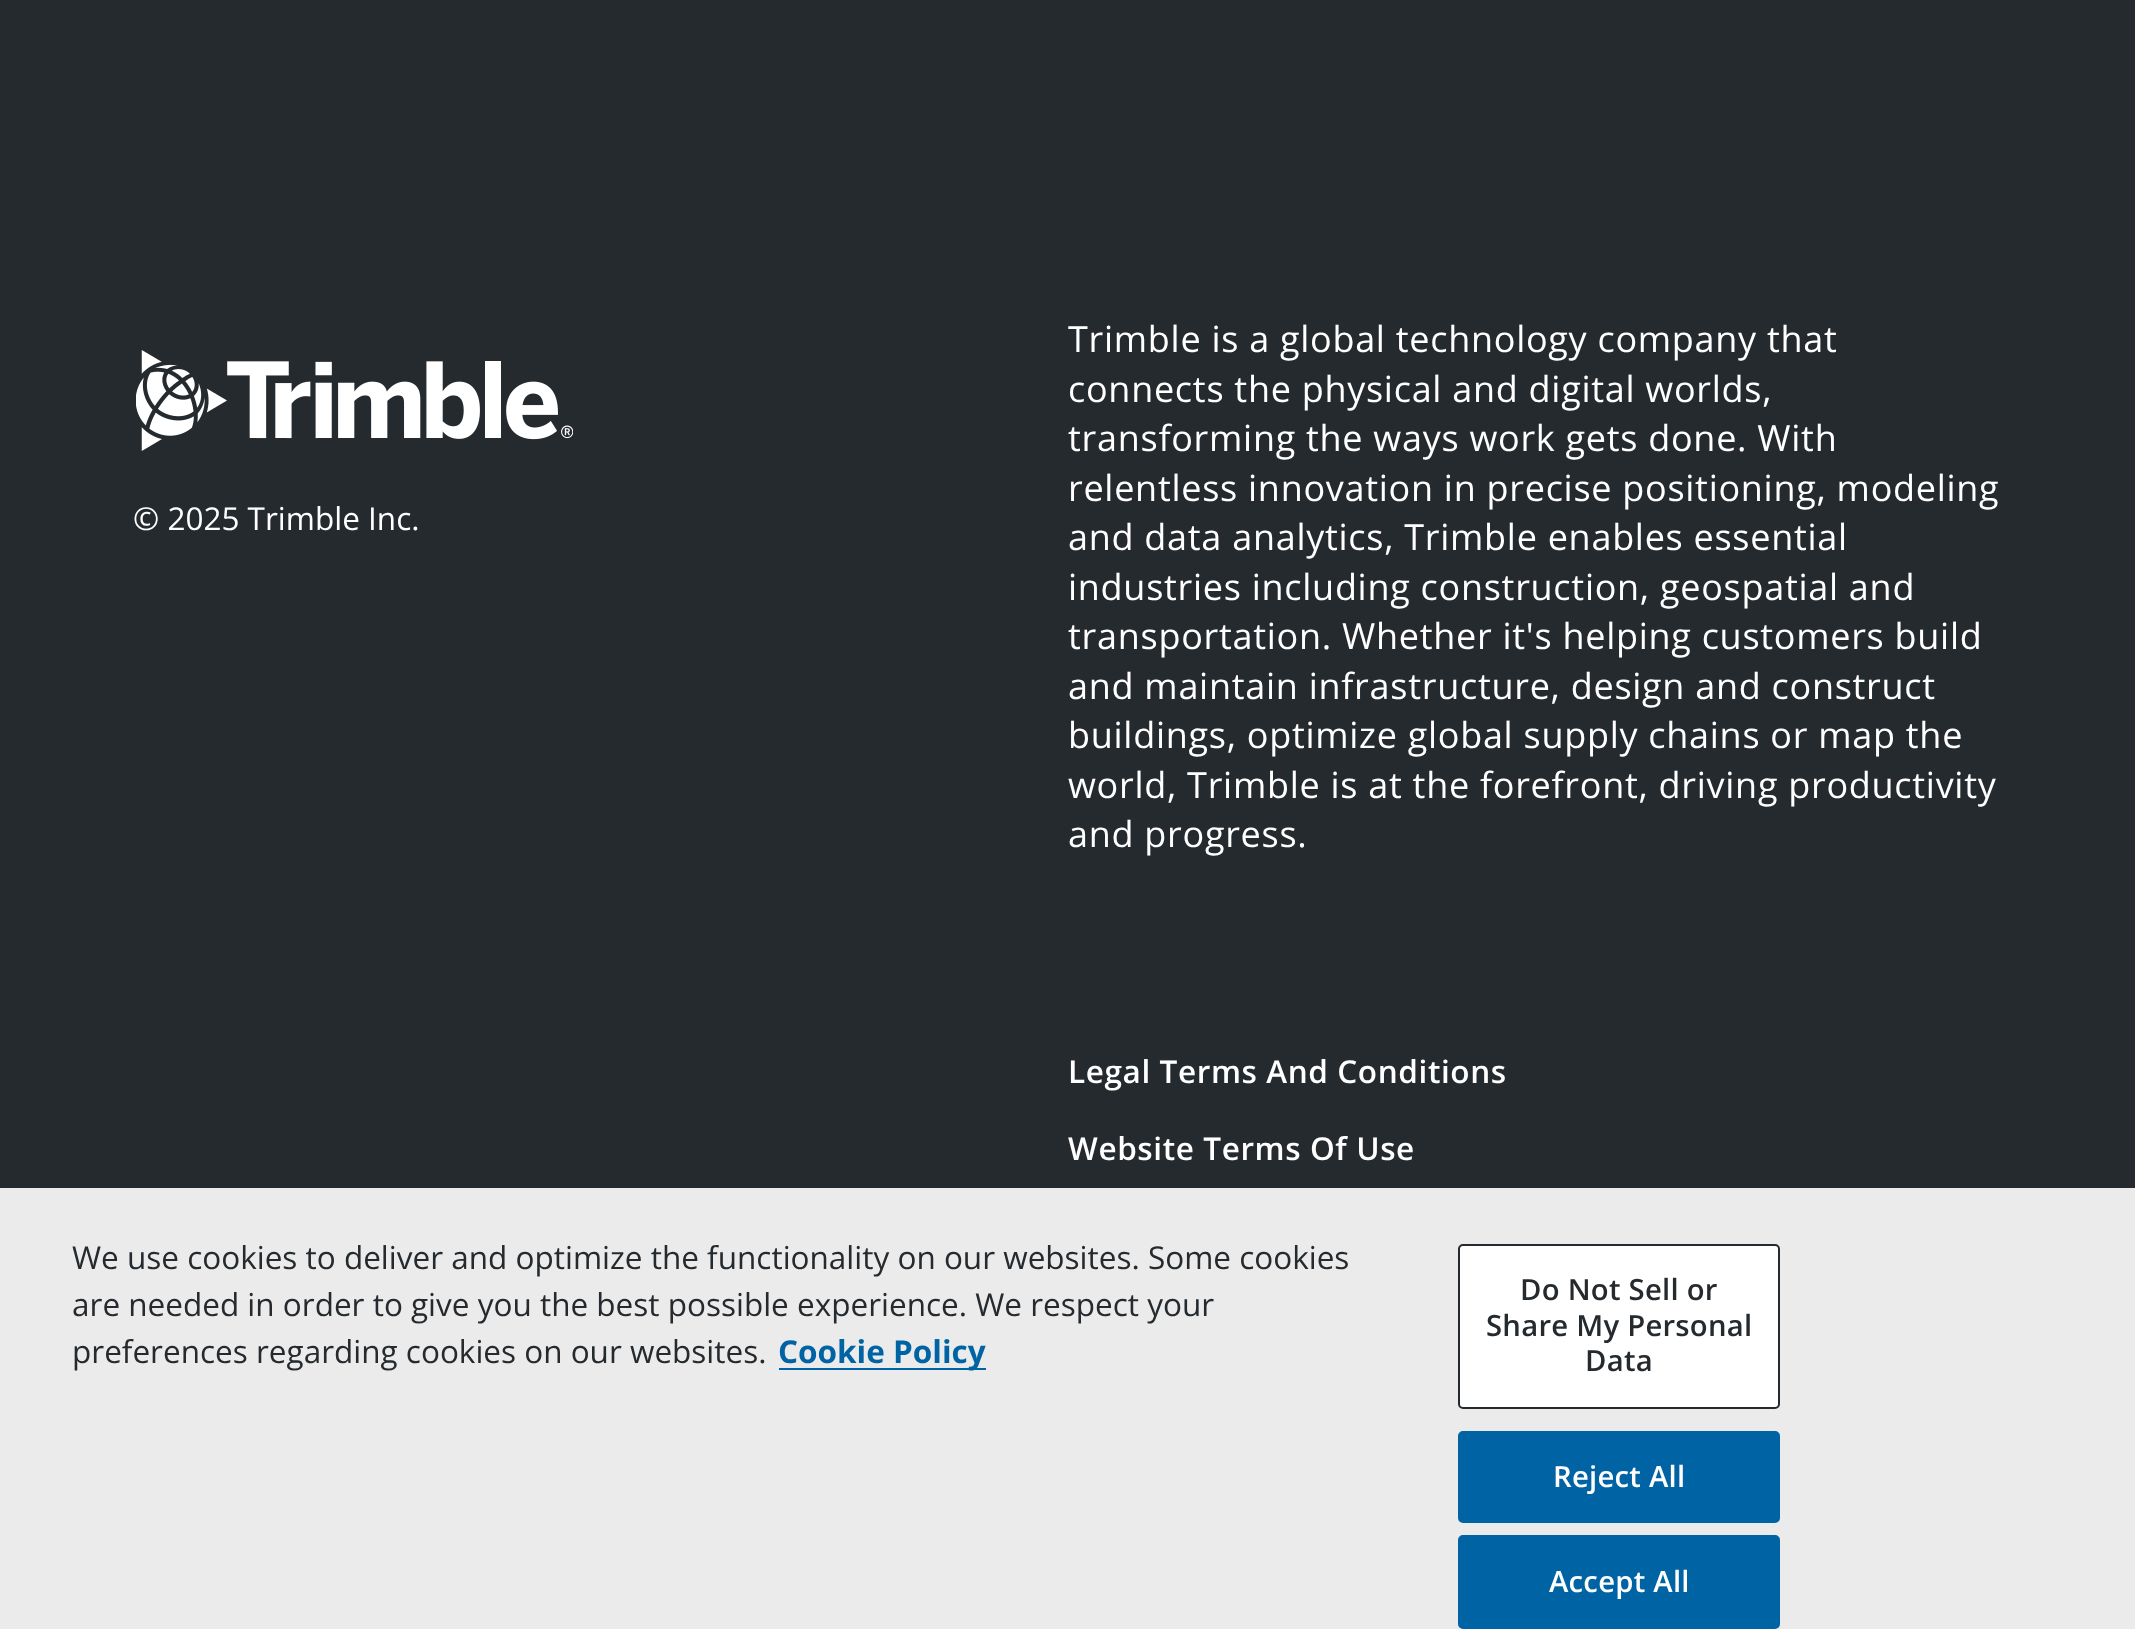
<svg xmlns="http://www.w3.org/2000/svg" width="2135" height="1629">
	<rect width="100%" height="100%" fill="#252A2E" />
	<image x="136" y="350" width="437" height="101" href="assets/img1.png" />
	<text x="133" y="530" font-family="Open Sans" font-size="31.5" fill="#FFFFFF">© 2025 Trimble Inc.</text>
	<g font-family="Open Sans" font-size="36" letter-spacing="0.72" fill="#FFFFFF">
		<text x="1068" y="352">Trimble is a global technology company that</text>
		<text x="1068" y="402">connects the physical and digital worlds,</text>
		<text x="1068" y="451">transforming the ways work gets done. With</text>
		<text x="1068" y="501">relentless innovation in precise positioning, modeling</text>
		<text x="1068" y="550">and data analytics, Trimble enables essential</text>
		<text x="1068" y="600">industries including construction, geospatial and</text>
		<text x="1068" y="649">transportation. Whether it's helping customers build</text>
		<text x="1068" y="699">and maintain infrastructure, design and construct</text>
		<text x="1068" y="748">buildings, optimize global supply chains or map the</text>
		<text x="1068" y="798">world, Trimble is at the forefront, driving productivity</text>
		<text x="1068" y="847">and progress.</text>
	</g>
	<g font-family="Open Sans" font-size="31.5" font-weight="600" letter-spacing="0.6" fill="#FFFFFF">
		<text x="1068" y="1083">Legal Terms And Conditions</text>
		<text x="1068" y="1160">Website Terms Of Use</text>
	</g>
	<rect x="0" y="1188" width="2135" height="441" fill="#EBEBEB" />
	<g font-family="Open Sans" font-size="31.5" fill="#252A2E">
		<text x="72" y="1269">We use cookies to deliver and optimize the functionality on our websites. Some cookies</text>
		<text x="72" y="1316">are needed in order to give you the best possible experience. We respect your</text>
		<text x="72" y="1363">preferences regarding cookies on our websites.</text>
	</g>
	<rect x="779" y="1368" width="207" height="2" fill="#0063A3" />
	<text x="778" y="1363" font-family="Open Sans" font-size="31.5" font-weight="700" fill="#0063A3">Cookie Policy</text>
	<rect x="1459" y="1245" width="320" height="163" rx="4" fill="#FFFFFF" stroke="#252A2E" stroke-width="2" />
	<g font-family="Open Sans" font-size="29.25" font-weight="600" letter-spacing="0.25" fill="#252A2E">
		<text x="1520" y="1300">Do Not Sell or</text>
		<text x="1486" y="1336">Share My Personal</text>
		<text x="1585" y="1371">Data</text>
	</g>
	<rect x="1459" y="1432" width="320" height="90" rx="4" fill="#0063A3" stroke="#0063A3" stroke-width="2" />
	<text x="1553" y="1487" font-family="Open Sans" font-size="29.25" font-weight="600" letter-spacing="0.25" fill="#FFFFFF">Reject All</text>
	<rect x="1459" y="1536" width="320" height="92" rx="4" fill="#0063A3" stroke="#0063A3" stroke-width="2" />
	<text x="1549" y="1592" font-family="Open Sans" font-size="29.25" font-weight="600" letter-spacing="0.25" fill="#FFFFFF">Accept All</text>
</svg>
